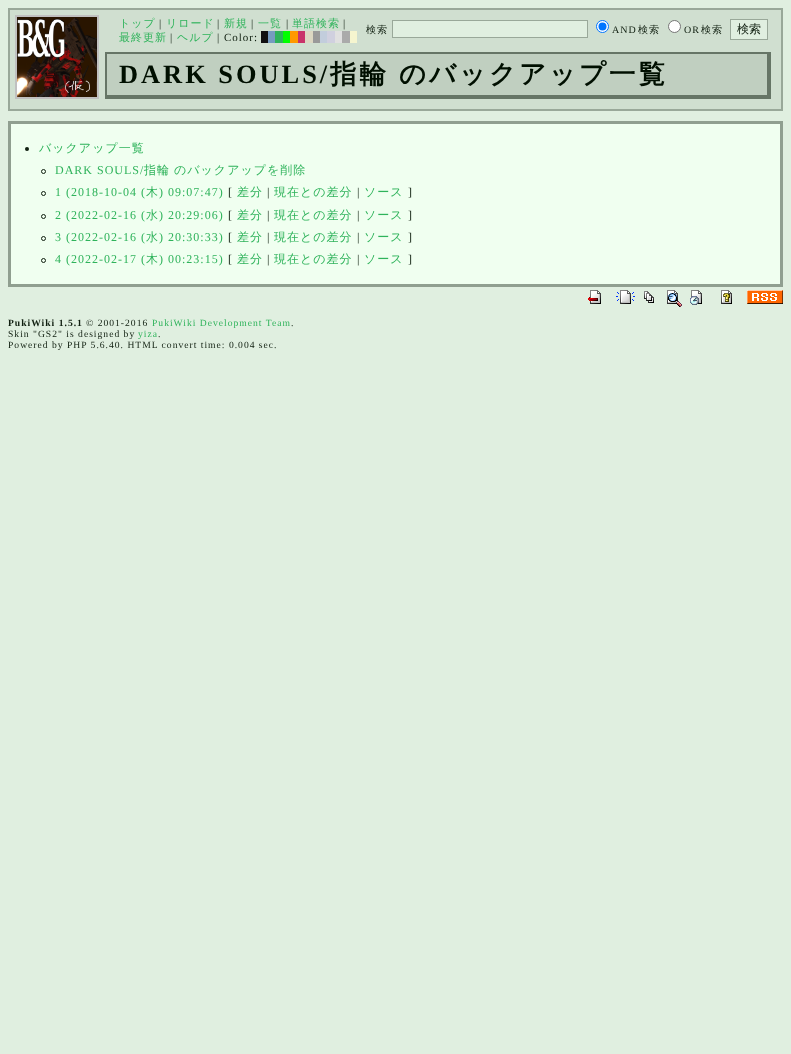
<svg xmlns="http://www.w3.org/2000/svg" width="791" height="1054">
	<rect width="100%" height="100%" fill="#E0EFE0" />
	<rect x="9" y="9" width="773" height="101" fill="#D0DFD0" stroke="#99A899" stroke-width="2" />
	<rect x="16" y="16" width="82" height="82" fill="none" stroke="#C0C0C0" stroke-width="2" />
	<image x="17" y="17" width="80" height="80" href="assets/img1.png" />
	<text x="119" y="27" font-family="WenQuanYi Zen Hei" font-size="11" font-weight="500" letter-spacing="1" fill="#2FB35B">トップ</text>
	<text x="159" y="27" font-family="Liberation Serif" font-size="11" letter-spacing="1" fill="#101F10">|</text>
	<text x="166" y="27" font-family="WenQuanYi Zen Hei" font-size="11" font-weight="500" letter-spacing="1" fill="#2FB35B">リロード</text>
	<text x="217" y="27" font-family="Liberation Serif" font-size="11" letter-spacing="1" fill="#101F10">|</text>
	<text x="224" y="27" font-family="WenQuanYi Zen Hei" font-size="11" font-weight="500" letter-spacing="1" fill="#2FB35B">新規</text>
	<text x="251" y="27" font-family="Liberation Serif" font-size="11" letter-spacing="1" fill="#101F10">|</text>
	<text x="258" y="27" font-family="WenQuanYi Zen Hei" font-size="11" font-weight="500" letter-spacing="1" fill="#2FB35B">一覧</text>
	<text x="286" y="27" font-family="Liberation Serif" font-size="11" letter-spacing="1" fill="#101F10">|</text>
	<text x="292" y="27" font-family="WenQuanYi Zen Hei" font-size="11" font-weight="500" letter-spacing="1" fill="#2FB35B">単語検索</text>
	<text x="343" y="27" font-family="Liberation Serif" font-size="11" letter-spacing="1" fill="#101F10">|</text>
	<text x="119" y="41" font-family="WenQuanYi Zen Hei" font-size="11" font-weight="500" letter-spacing="1" fill="#2FB35B">最終更新</text>
	<text x="170" y="41" font-family="Liberation Serif" font-size="11" letter-spacing="1" fill="#101F10">|</text>
	<text x="177" y="41" font-family="WenQuanYi Zen Hei" font-size="11" font-weight="500" letter-spacing="1" fill="#2FB35B">ヘルプ</text>
	<text x="217" y="41" font-family="Liberation Serif" font-size="11" letter-spacing="1" fill="#101F10">| Color:</text>
	<rect x="261" y="31" width="7" height="12" fill="#101010" />
	<rect x="268" y="31" width="7" height="12" fill="#769BC0" />
	<rect x="275" y="31" width="8" height="12" fill="#2FB35B" />
	<rect x="283" y="31" width="7" height="12" fill="#00FF00" />
	<rect x="290" y="31" width="8" height="12" fill="#FF9900" />
	<rect x="298" y="31" width="7" height="12" fill="#C9336A" />
	<rect x="305" y="31" width="8" height="12" fill="#DCD7C2" />
	<rect x="313" y="31" width="7" height="12" fill="#999999" />
	<rect x="320" y="31" width="7" height="12" fill="#C2CDDC" />
	<rect x="327" y="31" width="8" height="12" fill="#D0D0DF" />
	<rect x="335" y="31" width="7" height="12" fill="#E0E0E0" />
	<rect x="342" y="31" width="8" height="12" fill="#AAAAAA" />
	<rect x="350" y="31" width="7" height="12" fill="#F5F5CF" />
	<text x="366" y="33" font-family="WenQuanYi Zen Hei" font-size="10" font-weight="500" letter-spacing="1" fill="#101F10">検索</text>
	<rect x="392.5" y="20.5" width="195" height="17" fill="#E0EFE0" stroke="#99A899" />
	<circle cx="602.5" cy="26.5" r="6" fill="#FFFFFF" stroke="#0075FF" />
	<circle cx="602.5" cy="26.5" r="4" fill="#0075FF" />
	<text x="612" y="33" font-family="Liberation Serif" font-size="10" letter-spacing="1" fill="#101F10">AND</text>
	<text x="638" y="33" font-family="WenQuanYi Zen Hei" font-size="10" font-weight="500" letter-spacing="1" fill="#101F10">検索</text>
	<circle cx="674.5" cy="26.5" r="6" fill="#FFFFFF" stroke="#767676" />
	<text x="684" y="33" font-family="Liberation Serif" font-size="10" letter-spacing="1" fill="#101F10">OR</text>
	<text x="701" y="33" font-family="WenQuanYi Zen Hei" font-size="10" font-weight="500" letter-spacing="1" fill="#101F10">検索</text>
	<rect x="730.5" y="19.5" width="37" height="20" fill="#E0EFE0" stroke="#99A899" />
	<text x="737" y="33" font-family="WenQuanYi Zen Hei" font-size="12" font-weight="500" fill="#101F10">検索</text>
	<rect x="107" y="54" width="660" height="41" fill="#C0CFC0" />
	<rect x="105" y="52" width="666" height="2" fill="#667566" />
	<rect x="767" y="52" width="4" height="47" fill="#667566" />
	<rect x="105" y="95" width="666" height="4" fill="#667566" />
	<rect x="105" y="52" width="2" height="47" fill="#667566" />
	<text x="119" y="83" font-family="Liberation Serif" font-size="26.4" font-weight="700" letter-spacing="3" fill="#000F00">DARK SOULS/</text>
	<g font-family="WenQuanYi Zen Hei" font-size="26.4" font-weight="700" letter-spacing="3" fill="#000F00">
		<text x="330" y="83">指輪</text>
		<text x="399" y="83">のバックアップ一覧</text>
	</g>
	<rect x="9.5" y="122.5" width="772" height="163" fill="#F0FFF0" stroke="#909F90" stroke-width="3" />
	<circle cx="27" cy="149" r="2" fill="#101F10" />
	<text x="39" y="152" font-family="WenQuanYi Zen Hei" font-size="12" font-weight="500" letter-spacing="1" fill="#2FB35B">バックアップ一覧</text>
	<circle cx="43.5" cy="171.5" r="2" fill="none" stroke="#101F10" />
	<text x="55" y="174" font-family="Liberation Serif" font-size="12" letter-spacing="1" fill="#2FB35B">DARK SOULS/</text>
	<g font-family="WenQuanYi Zen Hei" font-size="12" font-weight="500" letter-spacing="1" fill="#2FB35B">
		<text x="144" y="174">指輪</text>
		<text x="174" y="174">のバックアップを削除</text>
	</g>
	<circle cx="43.5" cy="193.5" r="2" fill="none" stroke="#101F10" />
	<text x="55" y="196" font-family="Liberation Serif" font-size="12" letter-spacing="1" fill="#2FB35B">1 (2018-10-04 (</text>
	<text x="146" y="196" font-family="WenQuanYi Zen Hei" font-size="12" font-weight="500" letter-spacing="1" fill="#2FB35B">木</text>
	<text x="159" y="196" font-family="Liberation Serif" font-size="12" letter-spacing="1" fill="#2FB35B">) 09:07:47)</text>
	<text x="228" y="196" font-family="Liberation Serif" font-size="12" letter-spacing="1" fill="#101F10">[</text>
	<text x="237" y="196" font-family="WenQuanYi Zen Hei" font-size="12" font-weight="500" letter-spacing="1" fill="#2FB35B">差分</text>
	<text x="267" y="196" font-family="Liberation Serif" font-size="12" letter-spacing="1" fill="#101F10">|</text>
	<text x="274" y="196" font-family="WenQuanYi Zen Hei" font-size="12" font-weight="500" letter-spacing="1" fill="#2FB35B">現在との差分</text>
	<text x="357" y="196" font-family="Liberation Serif" font-size="12" letter-spacing="1" fill="#101F10">|</text>
	<text x="364" y="196" font-family="WenQuanYi Zen Hei" font-size="12" font-weight="500" letter-spacing="1" fill="#2FB35B">ソース</text>
	<text x="408" y="196" font-family="Liberation Serif" font-size="12" letter-spacing="1" fill="#101F10">]</text>
	<circle cx="43.5" cy="216.5" r="2" fill="none" stroke="#101F10" />
	<text x="55" y="219" font-family="Liberation Serif" font-size="12" letter-spacing="1" fill="#2FB35B">2 (2022-02-16 (</text>
	<text x="146" y="219" font-family="WenQuanYi Zen Hei" font-size="12" font-weight="500" letter-spacing="1" fill="#2FB35B">水</text>
	<text x="159" y="219" font-family="Liberation Serif" font-size="12" letter-spacing="1" fill="#2FB35B">) 20:29:06)</text>
	<text x="228" y="219" font-family="Liberation Serif" font-size="12" letter-spacing="1" fill="#101F10">[</text>
	<text x="237" y="219" font-family="WenQuanYi Zen Hei" font-size="12" font-weight="500" letter-spacing="1" fill="#2FB35B">差分</text>
	<text x="267" y="219" font-family="Liberation Serif" font-size="12" letter-spacing="1" fill="#101F10">|</text>
	<text x="274" y="219" font-family="WenQuanYi Zen Hei" font-size="12" font-weight="500" letter-spacing="1" fill="#2FB35B">現在との差分</text>
	<text x="357" y="219" font-family="Liberation Serif" font-size="12" letter-spacing="1" fill="#101F10">|</text>
	<text x="364" y="219" font-family="WenQuanYi Zen Hei" font-size="12" font-weight="500" letter-spacing="1" fill="#2FB35B">ソース</text>
	<text x="408" y="219" font-family="Liberation Serif" font-size="12" letter-spacing="1" fill="#101F10">]</text>
	<circle cx="43.5" cy="238.5" r="2" fill="none" stroke="#101F10" />
	<text x="55" y="241" font-family="Liberation Serif" font-size="12" letter-spacing="1" fill="#2FB35B">3 (2022-02-16 (</text>
	<text x="146" y="241" font-family="WenQuanYi Zen Hei" font-size="12" font-weight="500" letter-spacing="1" fill="#2FB35B">水</text>
	<text x="159" y="241" font-family="Liberation Serif" font-size="12" letter-spacing="1" fill="#2FB35B">) 20:30:33)</text>
	<text x="228" y="241" font-family="Liberation Serif" font-size="12" letter-spacing="1" fill="#101F10">[</text>
	<text x="237" y="241" font-family="WenQuanYi Zen Hei" font-size="12" font-weight="500" letter-spacing="1" fill="#2FB35B">差分</text>
	<text x="267" y="241" font-family="Liberation Serif" font-size="12" letter-spacing="1" fill="#101F10">|</text>
	<text x="274" y="241" font-family="WenQuanYi Zen Hei" font-size="12" font-weight="500" letter-spacing="1" fill="#2FB35B">現在との差分</text>
	<text x="357" y="241" font-family="Liberation Serif" font-size="12" letter-spacing="1" fill="#101F10">|</text>
	<text x="364" y="241" font-family="WenQuanYi Zen Hei" font-size="12" font-weight="500" letter-spacing="1" fill="#2FB35B">ソース</text>
	<text x="408" y="241" font-family="Liberation Serif" font-size="12" letter-spacing="1" fill="#101F10">]</text>
	<circle cx="43.5" cy="260.5" r="2" fill="none" stroke="#101F10" />
	<text x="55" y="263" font-family="Liberation Serif" font-size="12" letter-spacing="1" fill="#2FB35B">4 (2022-02-17 (</text>
	<text x="146" y="263" font-family="WenQuanYi Zen Hei" font-size="12" font-weight="500" letter-spacing="1" fill="#2FB35B">木</text>
	<text x="159" y="263" font-family="Liberation Serif" font-size="12" letter-spacing="1" fill="#2FB35B">) 00:23:15)</text>
	<text x="228" y="263" font-family="Liberation Serif" font-size="12" letter-spacing="1" fill="#101F10">[</text>
	<text x="237" y="263" font-family="WenQuanYi Zen Hei" font-size="12" font-weight="500" letter-spacing="1" fill="#2FB35B">差分</text>
	<text x="267" y="263" font-family="Liberation Serif" font-size="12" letter-spacing="1" fill="#101F10">|</text>
	<text x="274" y="263" font-family="WenQuanYi Zen Hei" font-size="12" font-weight="500" letter-spacing="1" fill="#2FB35B">現在との差分</text>
	<text x="357" y="263" font-family="Liberation Serif" font-size="12" letter-spacing="1" fill="#101F10">|</text>
	<text x="364" y="263" font-family="WenQuanYi Zen Hei" font-size="12" font-weight="500" letter-spacing="1" fill="#2FB35B">ソース</text>
	<text x="408" y="263" font-family="Liberation Serif" font-size="12" letter-spacing="1" fill="#101F10">]</text>
	<image x="588" y="290" width="13" height="14" href="assets/img2.png" />
	<image x="616" y="290" width="19" height="14" href="assets/img3.png" />
	<image x="644" y="291" width="10" height="12" href="assets/img4.png" />
	<image x="667" y="290" width="15" height="17" href="assets/img5.png" />
	<image x="690" y="290" width="12" height="15" href="assets/img6.png" />
	<image x="721" y="290" width="11" height="14" href="assets/img7.png" />
	<image x="747" y="290" width="36" height="14" href="assets/img8.png" />
	<text x="8" y="326" font-family="Liberation Serif" font-size="9.6" font-weight="700" letter-spacing="1" fill="#101F10">PukiWiki 1.5.1</text>
	<text x="86" y="326" font-family="Liberation Serif" font-size="9.6" letter-spacing="1" fill="#101F10">© 2001-2016</text>
	<text x="152" y="326" font-family="Liberation Serif" font-size="9.6" letter-spacing="1" fill="#2FB35B">PukiWiki Development Team</text>
	<g font-family="Liberation Serif" font-size="9.6" letter-spacing="1" fill="#101F10">
		<text x="291" y="326">.</text>
		<text x="8" y="337">Skin "GS2" is designed by</text>
	</g>
	<text x="138" y="337" font-family="Liberation Serif" font-size="9.6" letter-spacing="1" fill="#2FB35B">yiza</text>
	<g font-family="Liberation Serif" font-size="9.6" letter-spacing="1" fill="#101F10">
		<text x="158" y="337">.</text>
		<text x="8" y="348">Powered by PHP 5.6.40. HTML convert time: 0.004 sec.</text>
	</g>
</svg>
